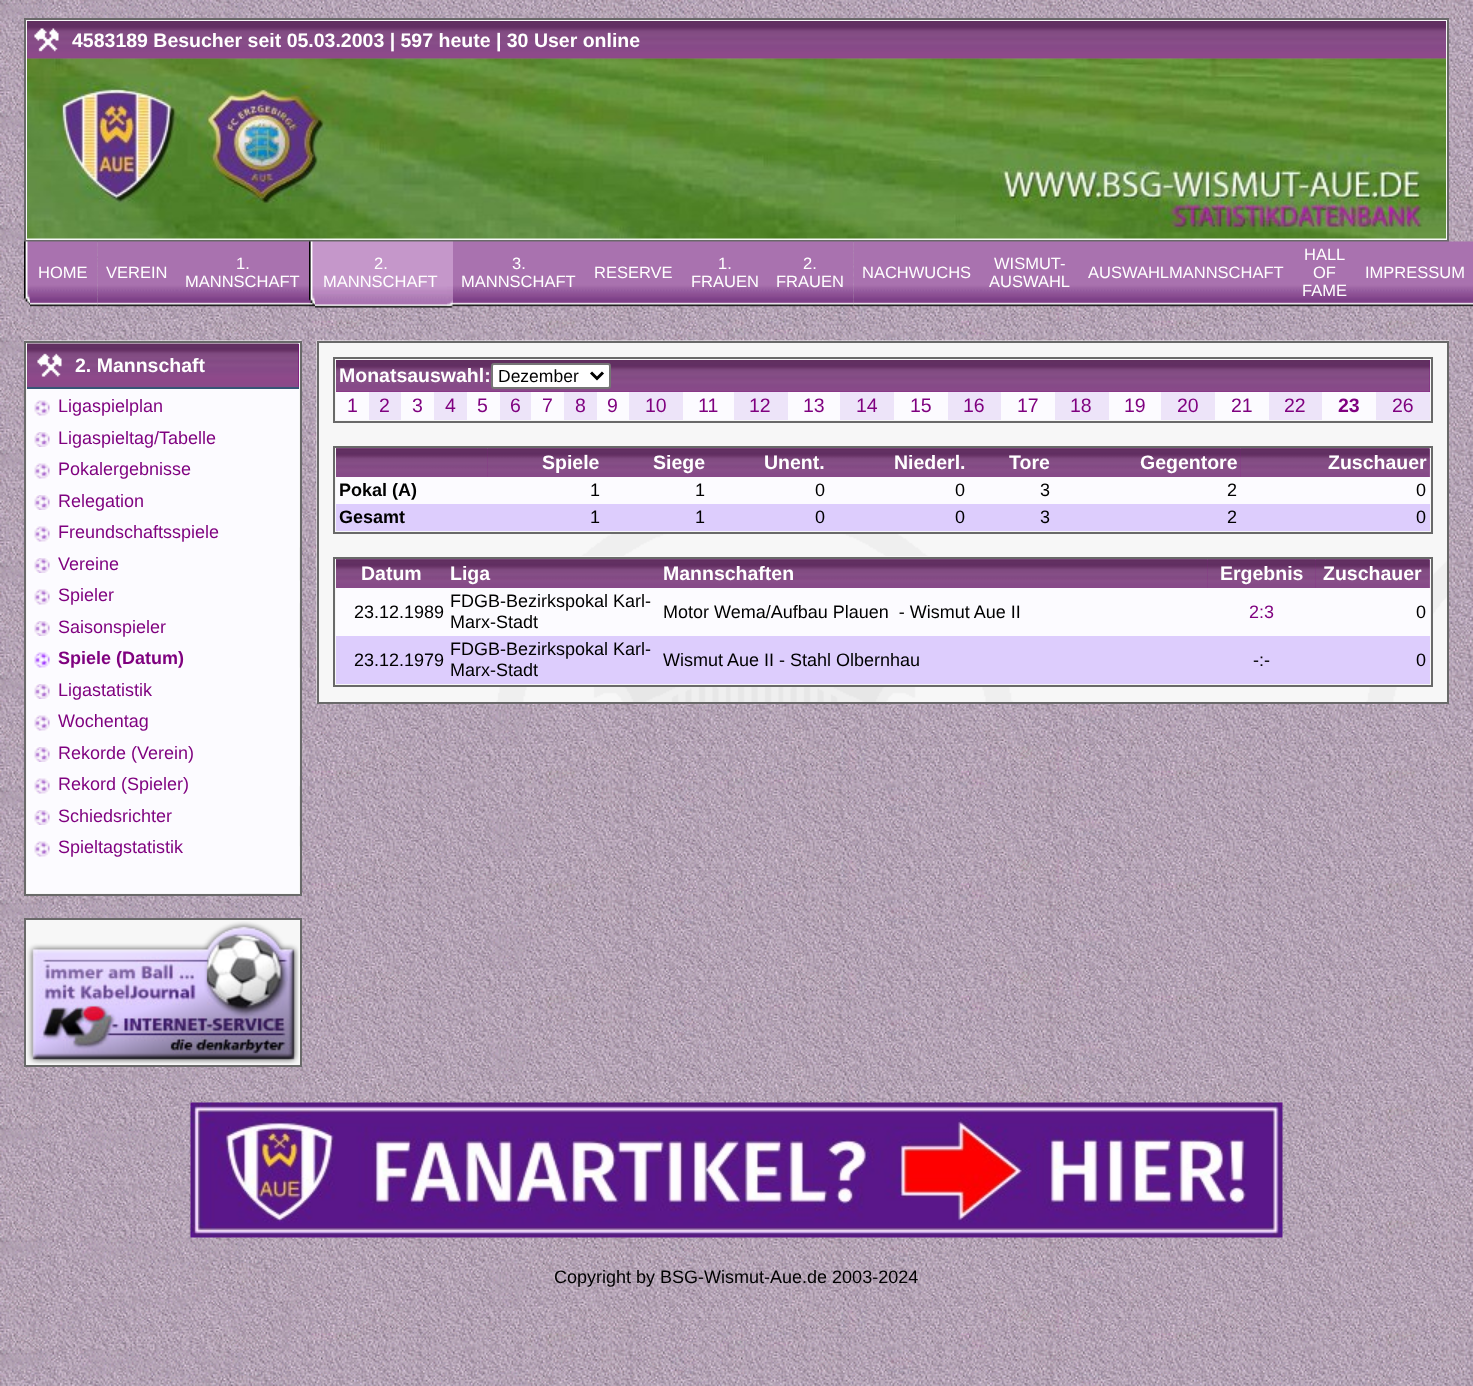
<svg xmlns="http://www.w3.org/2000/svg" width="1473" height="1386">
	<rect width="100%" height="100%" fill="#FFFFFF" />
	<image x="0" y="0" width="1473" height="1386" href="assets/img1.png" />
	<image x="26" y="20" width="1421" height="220" href="assets/img2.png" />
	<rect x="25" y="19" width="1423" height="222" fill="none" stroke="#696969" stroke-width="2" />
	<image x="27" y="21" width="1407" height="38" href="assets/img3.png" />
	<image x="34" y="28" width="25" height="24" href="assets/img4.png" />
	<text x="72" y="47" font-family="Liberation Sans" font-size="19.5" font-weight="700" fill="#FFFFFF">4583189 Besucher seit 05.03.2003 | 597 heute | 30 User online</text>
	<image x="1434" y="21" width="12" height="38" href="assets/img5.png" />
	<image x="27" y="58" width="1419" height="181" href="assets/img6.png" />
	<image x="24" y="241" width="6" height="64" href="assets/img7.png" />
	<image x="30" y="241" width="68" height="66" href="assets/img8.png" />
	<text x="38" y="278" font-family="Liberation Sans" font-size="16.5" fill="#FFFFFF">HOME</text>
	<image x="97" y="241" width="80" height="66" href="assets/img9.png" />
	<text x="106" y="278" font-family="Liberation Sans" font-size="16.5" fill="#FFFFFF">VEREIN</text>
	<image x="177" y="241" width="132" height="66" href="assets/img10.png" />
	<g font-family="Liberation Sans" font-size="16.5" fill="#FFFFFF">
		<text x="236" y="269">1.</text>
		<text x="185" y="287">MANNSCHAFT</text>
	</g>
	<image x="309" y="241" width="6" height="66" href="assets/img11.png" />
	<image x="315" y="241" width="132" height="67" href="assets/img12.png" />
	<g font-family="Liberation Sans" font-size="16.5" fill="#FFFFFF">
		<text x="374" y="269">2.</text>
		<text x="323" y="287">MANNSCHAFT</text>
	</g>
	<image x="447" y="241" width="6" height="67" href="assets/img13.png" />
	<image x="453" y="241" width="132" height="66" href="assets/img14.png" />
	<g font-family="Liberation Sans" font-size="16.5" fill="#FFFFFF">
		<text x="512" y="269">3.</text>
		<text x="461" y="287">MANNSCHAFT</text>
	</g>
	<image x="585" y="241" width="96" height="66" href="assets/img15.png" />
	<text x="594" y="278" font-family="Liberation Sans" font-size="16.5" fill="#FFFFFF">RESERVE</text>
	<image x="681" y="241" width="87" height="66" href="assets/img16.png" />
	<g font-family="Liberation Sans" font-size="16.5" fill="#FFFFFF">
		<text x="718" y="269">1.</text>
		<text x="691" y="287">FRAUEN</text>
	</g>
	<image x="768" y="241" width="86" height="66" href="assets/img17.png" />
	<g font-family="Liberation Sans" font-size="16.5" fill="#FFFFFF">
		<text x="803" y="269">2.</text>
		<text x="776" y="287">FRAUEN</text>
	</g>
	<image x="853" y="241" width="128" height="66" href="assets/img18.png" />
	<text x="862" y="278" font-family="Liberation Sans" font-size="16.5" fill="#FFFFFF">NACHWUCHS</text>
	<image x="981" y="241" width="99" height="66" href="assets/img19.png" />
	<g font-family="Liberation Sans" font-size="16.5" fill="#FFFFFF">
		<text x="994" y="269">WISMUT-</text>
		<text x="989" y="287">AUSWAHL</text>
	</g>
	<image x="1080" y="241" width="213" height="66" href="assets/img20.png" />
	<text x="1088" y="278" font-family="Liberation Sans" font-size="16.5" fill="#FFFFFF">AUSWAHLMANNSCHAFT</text>
	<image x="1293" y="241" width="63" height="66" href="assets/img21.png" />
	<g font-family="Liberation Sans" font-size="16.5" fill="#FFFFFF">
		<text x="1304" y="260">HALL</text>
		<text x="1313" y="278">OF</text>
		<text x="1302" y="296">FAME</text>
	</g>
	<image x="1356" y="241" width="117" height="66" href="assets/img22.png" />
	<text x="1365" y="278" font-family="Liberation Sans" font-size="16.5" fill="#FFFFFF">IMPRESSUM</text>
	<image x="24" y="340" width="278" height="554" href="assets/img23.png" />
	<rect x="25" y="342" width="276" height="553" fill="none" stroke="#696969" stroke-width="2" />
	<rect x="298" y="344" width="1" height="43" fill="#800080" />
	<image x="27" y="343" width="272" height="44" href="assets/img24.png" />
	<rect x="27" y="387" width="272" height="2" fill="#375576" />
	<image x="37" y="353" width="25" height="24" href="assets/img25.png" />
	<text x="75" y="372" font-family="Liberation Sans" font-size="19.5" font-weight="700" fill="#FFFFFF">2. Mannschaft</text>
	<rect x="27" y="389" width="272" height="504" fill="#FCFBFF" />
	<image x="34" y="400" width="16" height="16" href="assets/img26.png" />
	<text x="58" y="412" font-family="Liberation Sans" font-size="18" fill="#7F007F">Ligaspielplan</text>
	<image x="34" y="432" width="16" height="15" href="assets/img27.png" />
	<text x="58" y="444" font-family="Liberation Sans" font-size="18" fill="#7F007F">Ligaspieltag/Tabelle</text>
	<image x="34" y="463" width="16" height="16" href="assets/img26.png" />
	<text x="58" y="475" font-family="Liberation Sans" font-size="18" fill="#7F007F">Pokalergebnisse</text>
	<image x="34" y="495" width="16" height="15" href="assets/img27.png" />
	<text x="58" y="507" font-family="Liberation Sans" font-size="18" fill="#7F007F">Relegation</text>
	<image x="34" y="526" width="16" height="16" href="assets/img26.png" />
	<text x="58" y="538" font-family="Liberation Sans" font-size="18" fill="#7F007F">Freundschaftsspiele</text>
	<image x="34" y="558" width="16" height="15" href="assets/img27.png" />
	<text x="58" y="570" font-family="Liberation Sans" font-size="18" fill="#7F007F">Vereine</text>
	<image x="34" y="589" width="16" height="16" href="assets/img26.png" />
	<text x="58" y="601" font-family="Liberation Sans" font-size="18" fill="#7F007F">Spieler</text>
	<image x="34" y="621" width="16" height="15" href="assets/img27.png" />
	<text x="58" y="633" font-family="Liberation Sans" font-size="18" fill="#7F007F">Saisonspieler</text>
	<image x="34" y="652" width="16" height="16" href="assets/img28.png" />
	<text x="58" y="664" font-family="Liberation Sans" font-size="18" font-weight="700" fill="#7F007F">Spiele (Datum)</text>
	<image x="34" y="684" width="16" height="15" href="assets/img27.png" />
	<text x="58" y="696" font-family="Liberation Sans" font-size="18" fill="#7F007F">Ligastatistik</text>
	<image x="34" y="715" width="16" height="16" href="assets/img26.png" />
	<text x="58" y="727" font-family="Liberation Sans" font-size="18" fill="#7F007F">Wochentag</text>
	<image x="34" y="747" width="16" height="15" href="assets/img27.png" />
	<text x="58" y="759" font-family="Liberation Sans" font-size="18" fill="#7F007F">Rekorde (Verein)</text>
	<image x="34" y="778" width="16" height="16" href="assets/img26.png" />
	<text x="58" y="790" font-family="Liberation Sans" font-size="18" fill="#7F007F">Rekord (Spieler)</text>
	<image x="34" y="810" width="16" height="15" href="assets/img27.png" />
	<text x="58" y="822" font-family="Liberation Sans" font-size="18" fill="#7F007F">Schiedsrichter</text>
	<image x="34" y="841" width="16" height="16" href="assets/img26.png" />
	<text x="58" y="853" font-family="Liberation Sans" font-size="18" fill="#7F007F">Spieltagstatistik</text>
	<rect x="25" y="919" width="276" height="147" fill="#F7F7F7" stroke="#696969" stroke-width="2" />
	<image x="27" y="921" width="272" height="143" href="assets/img29.png" />
	<image x="316" y="340" width="1133" height="364" href="assets/img30.png" />
	<rect x="318" y="342" width="1130" height="361" fill="none" stroke="#696969" stroke-width="2" />
	<rect x="334" y="358" width="1098" height="64" fill="none" stroke="#696969" stroke-width="2" />
	<rect x="336" y="360" width="1094" height="32" fill="#800080" />
	<image x="336" y="360" width="1094" height="32" href="assets/img31.png" />
	<text x="339" y="382" font-family="Liberation Sans" font-size="19.5" font-weight="700" fill="#FFFFFF">Monatsauswahl:</text>
	<rect x="492" y="364" width="118" height="24" rx="2" fill="#FFFFFF" stroke="#767676" stroke-width="2" />
	<path d="M591 372.5L597 378.5L603 372.5" fill="none" stroke="#000000" stroke-width="3" />
	<text x="498" y="382" font-family="Liberation Sans" font-size="17.5" fill="#000000">Dezember</text>
	<rect x="336" y="392" width="33" height="28" fill="#FCFBFF" />
	<text x="347" y="412" font-family="Liberation Sans" font-size="19.5" fill="#7F007F">1</text>
	<rect x="369" y="392" width="32" height="28" fill="#EDE4F9" />
	<text x="379" y="412" font-family="Liberation Sans" font-size="19.5" fill="#7F007F">2</text>
	<rect x="401" y="392" width="33" height="28" fill="#FCFBFF" />
	<text x="412" y="412" font-family="Liberation Sans" font-size="19.5" fill="#7F007F">3</text>
	<rect x="434" y="392" width="33" height="28" fill="#EDE4F9" />
	<text x="445" y="412" font-family="Liberation Sans" font-size="19.5" fill="#7F007F">4</text>
	<rect x="467" y="392" width="33" height="28" fill="#FCFBFF" />
	<text x="477" y="412" font-family="Liberation Sans" font-size="19.5" fill="#7F007F">5</text>
	<rect x="500" y="392" width="31" height="28" fill="#EDE4F9" />
	<text x="510" y="412" font-family="Liberation Sans" font-size="19.5" fill="#7F007F">6</text>
	<rect x="531" y="392" width="33" height="28" fill="#FCFBFF" />
	<text x="542" y="412" font-family="Liberation Sans" font-size="19.5" fill="#7F007F">7</text>
	<rect x="564" y="392" width="33" height="28" fill="#EDE4F9" />
	<text x="575" y="412" font-family="Liberation Sans" font-size="19.5" fill="#7F007F">8</text>
	<rect x="597" y="392" width="32" height="28" fill="#FCFBFF" />
	<text x="607" y="412" font-family="Liberation Sans" font-size="19.5" fill="#7F007F">9</text>
	<rect x="629" y="392" width="54" height="28" fill="#EDE4F9" />
	<text x="645" y="412" font-family="Liberation Sans" font-size="19.5" fill="#7F007F">10</text>
	<rect x="683" y="392" width="51" height="28" fill="#FCFBFF" />
	<text x="698" y="412" font-family="Liberation Sans" font-size="19.5" fill="#7F007F">11</text>
	<rect x="734" y="392" width="54" height="28" fill="#EDE4F9" />
	<text x="749" y="412" font-family="Liberation Sans" font-size="19.5" fill="#7F007F">12</text>
	<rect x="788" y="392" width="52" height="28" fill="#FCFBFF" />
	<text x="803" y="412" font-family="Liberation Sans" font-size="19.5" fill="#7F007F">13</text>
	<rect x="840" y="392" width="54" height="28" fill="#EDE4F9" />
	<text x="856" y="412" font-family="Liberation Sans" font-size="19.5" fill="#7F007F">14</text>
	<rect x="894" y="392" width="54" height="28" fill="#FCFBFF" />
	<text x="910" y="412" font-family="Liberation Sans" font-size="19.5" fill="#7F007F">15</text>
	<rect x="948" y="392" width="53" height="28" fill="#EDE4F9" />
	<text x="963" y="412" font-family="Liberation Sans" font-size="19.5" fill="#7F007F">16</text>
	<rect x="1001" y="392" width="54" height="28" fill="#FCFBFF" />
	<text x="1017" y="412" font-family="Liberation Sans" font-size="19.5" fill="#7F007F">17</text>
	<rect x="1055" y="392" width="54" height="28" fill="#EDE4F9" />
	<text x="1070" y="412" font-family="Liberation Sans" font-size="19.5" fill="#7F007F">18</text>
	<rect x="1109" y="392" width="52" height="28" fill="#FCFBFF" />
	<text x="1124" y="412" font-family="Liberation Sans" font-size="19.5" fill="#7F007F">19</text>
	<rect x="1161" y="392" width="54" height="28" fill="#EDE4F9" />
	<text x="1177" y="412" font-family="Liberation Sans" font-size="19.5" fill="#7F007F">20</text>
	<rect x="1215" y="392" width="54" height="28" fill="#FCFBFF" />
	<text x="1231" y="412" font-family="Liberation Sans" font-size="19.5" fill="#7F007F">21</text>
	<rect x="1269" y="392" width="53" height="28" fill="#EDE4F9" />
	<text x="1284" y="412" font-family="Liberation Sans" font-size="19.5" fill="#7F007F">22</text>
	<rect x="1322" y="392" width="54" height="28" fill="#FCFBFF" />
	<text x="1338" y="412" font-family="Liberation Sans" font-size="19.5" font-weight="700" fill="#7F007F">23</text>
	<rect x="1376" y="392" width="54" height="28" fill="#EDE4F9" />
	<text x="1392" y="412" font-family="Liberation Sans" font-size="19.5" fill="#7F007F">26</text>
	<rect x="612" y="531" width="285" height="1" fill="#F7F7F7" />
	<rect x="334" y="447" width="1098" height="86" fill="none" stroke="#696969" stroke-width="2" />
	<image x="336" y="448" width="152" height="29" href="assets/img32.png" />
	<image x="487" y="448" width="116" height="29" href="assets/img33.png" />
	<text x="542" y="469" font-family="Liberation Sans" font-size="19.5" font-weight="700" fill="#FFFFFF">Spiele</text>
	<image x="603" y="448" width="105" height="29" href="assets/img34.png" />
	<text x="653" y="469" font-family="Liberation Sans" font-size="19.5" font-weight="700" fill="#FFFFFF">Siege</text>
	<image x="708" y="448" width="120" height="29" href="assets/img35.png" />
	<text x="764" y="469" font-family="Liberation Sans" font-size="19.5" font-weight="700" fill="#FFFFFF">Unent.</text>
	<image x="828" y="448" width="141" height="29" href="assets/img36.png" />
	<text x="894" y="469" font-family="Liberation Sans" font-size="19.5" font-weight="700" fill="#FFFFFF">Niederl.</text>
	<image x="969" y="448" width="84" height="29" href="assets/img37.png" />
	<text x="1009" y="469" font-family="Liberation Sans" font-size="19.5" font-weight="700" fill="#FFFFFF">Tore</text>
	<image x="1053" y="448" width="188" height="29" href="assets/img38.png" />
	<text x="1140" y="469" font-family="Liberation Sans" font-size="19.5" font-weight="700" fill="#FFFFFF">Gegentore</text>
	<image x="1240" y="448" width="190" height="29" href="assets/img39.png" />
	<text x="1328" y="469" font-family="Liberation Sans" font-size="19.5" font-weight="700" fill="#FFFFFF">Zuschauer</text>
	<rect x="336" y="477" width="1094" height="27" fill="#FCFBFF" />
	<text x="339" y="496" font-family="Liberation Sans" font-size="18" font-weight="700" fill="#000000">Pokal (A)</text>
	<g font-family="Liberation Sans" font-size="18" fill="#000000">
		<text x="590" y="496">1</text>
		<text x="695" y="496">1</text>
		<text x="815" y="496">0</text>
		<text x="955" y="496">0</text>
		<text x="1040" y="496">3</text>
		<text x="1227" y="496">2</text>
		<text x="1416" y="496">0</text>
	</g>
	<rect x="336" y="504" width="1094" height="27" fill="#DDCDFD" />
	<text x="339" y="523" font-family="Liberation Sans" font-size="18" font-weight="700" fill="#000000">Gesamt</text>
	<g font-family="Liberation Sans" font-size="18" fill="#000000">
		<text x="590" y="523">1</text>
		<text x="695" y="523">1</text>
		<text x="815" y="523">0</text>
		<text x="955" y="523">0</text>
		<text x="1040" y="523">3</text>
		<text x="1227" y="523">2</text>
		<text x="1416" y="523">0</text>
	</g>
	<rect x="501" y="556" width="932" height="129" fill="#F7F7F7" />
	<rect x="334" y="558" width="1098" height="128" fill="none" stroke="#696969" stroke-width="2" />
	<image x="336" y="559" width="111" height="29" href="assets/img40.png" />
	<text x="361" y="580" font-family="Liberation Sans" font-size="19.5" font-weight="700" fill="#FFFFFF">Datum</text>
	<image x="447" y="559" width="213" height="29" href="assets/img41.png" />
	<text x="450" y="580" font-family="Liberation Sans" font-size="19.5" font-weight="700" fill="#FFFFFF">Liga</text>
	<image x="660" y="559" width="548" height="29" href="assets/img42.png" />
	<text x="663" y="580" font-family="Liberation Sans" font-size="19.5" font-weight="700" fill="#FFFFFF">Mannschaften</text>
	<image x="1207" y="559" width="109" height="29" href="assets/img43.png" />
	<text x="1220" y="580" font-family="Liberation Sans" font-size="19.5" font-weight="700" fill="#FFFFFF">Ergebnis</text>
	<image x="1315" y="559" width="115" height="29" href="assets/img44.png" />
	<text x="1323" y="580" font-family="Liberation Sans" font-size="19.5" font-weight="700" fill="#FFFFFF">Zuschauer</text>
	<rect x="336" y="588" width="1094" height="48" fill="#FCFBFF" />
	<g font-family="Liberation Sans" font-size="18" fill="#000000">
		<text x="354" y="618">23.12.1989</text>
		<text x="450" y="607">FDGB-Bezirkspokal Karl-</text>
		<text x="450" y="628">Marx-Stadt</text>
		<text x="663" y="618" xml:space="preserve">Motor Wema/Aufbau Plauen  - Wismut Aue II</text>
	</g>
	<text x="1249" y="618" font-family="Liberation Sans" font-size="18" fill="#7F007F">2:3</text>
	<text x="1416" y="618" font-family="Liberation Sans" font-size="18" fill="#000000">0</text>
	<rect x="336" y="636" width="1094" height="48" fill="#DDCDFD" />
	<g font-family="Liberation Sans" font-size="18" fill="#000000">
		<text x="354" y="666">23.12.1979</text>
		<text x="450" y="655">FDGB-Bezirkspokal Karl-</text>
		<text x="450" y="676">Marx-Stadt</text>
		<text x="663" y="666">Wismut Aue II - Stahl Olbernhau</text>
		<text x="1253" y="666">-:-</text>
		<text x="1416" y="666">0</text>
	</g>
	<image x="190" y="1102" width="1093" height="136" href="assets/img45.png" />
	<text x="554" y="1283" font-family="Liberation Sans" font-size="18" fill="#000000">Copyright by BSG-Wismut-Aue.de 2003-2024</text>
</svg>
